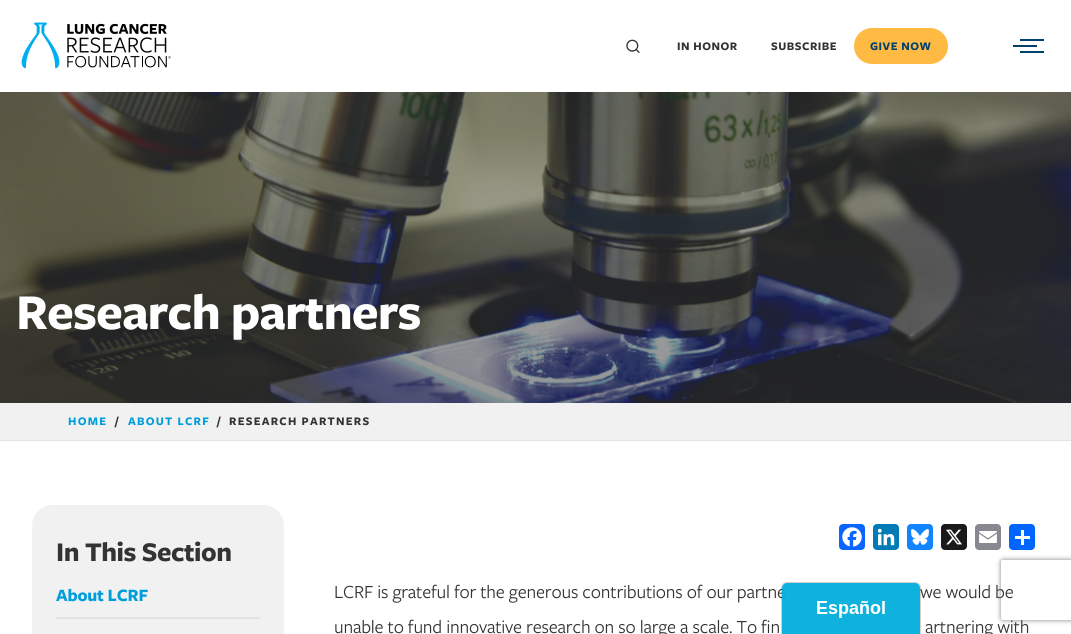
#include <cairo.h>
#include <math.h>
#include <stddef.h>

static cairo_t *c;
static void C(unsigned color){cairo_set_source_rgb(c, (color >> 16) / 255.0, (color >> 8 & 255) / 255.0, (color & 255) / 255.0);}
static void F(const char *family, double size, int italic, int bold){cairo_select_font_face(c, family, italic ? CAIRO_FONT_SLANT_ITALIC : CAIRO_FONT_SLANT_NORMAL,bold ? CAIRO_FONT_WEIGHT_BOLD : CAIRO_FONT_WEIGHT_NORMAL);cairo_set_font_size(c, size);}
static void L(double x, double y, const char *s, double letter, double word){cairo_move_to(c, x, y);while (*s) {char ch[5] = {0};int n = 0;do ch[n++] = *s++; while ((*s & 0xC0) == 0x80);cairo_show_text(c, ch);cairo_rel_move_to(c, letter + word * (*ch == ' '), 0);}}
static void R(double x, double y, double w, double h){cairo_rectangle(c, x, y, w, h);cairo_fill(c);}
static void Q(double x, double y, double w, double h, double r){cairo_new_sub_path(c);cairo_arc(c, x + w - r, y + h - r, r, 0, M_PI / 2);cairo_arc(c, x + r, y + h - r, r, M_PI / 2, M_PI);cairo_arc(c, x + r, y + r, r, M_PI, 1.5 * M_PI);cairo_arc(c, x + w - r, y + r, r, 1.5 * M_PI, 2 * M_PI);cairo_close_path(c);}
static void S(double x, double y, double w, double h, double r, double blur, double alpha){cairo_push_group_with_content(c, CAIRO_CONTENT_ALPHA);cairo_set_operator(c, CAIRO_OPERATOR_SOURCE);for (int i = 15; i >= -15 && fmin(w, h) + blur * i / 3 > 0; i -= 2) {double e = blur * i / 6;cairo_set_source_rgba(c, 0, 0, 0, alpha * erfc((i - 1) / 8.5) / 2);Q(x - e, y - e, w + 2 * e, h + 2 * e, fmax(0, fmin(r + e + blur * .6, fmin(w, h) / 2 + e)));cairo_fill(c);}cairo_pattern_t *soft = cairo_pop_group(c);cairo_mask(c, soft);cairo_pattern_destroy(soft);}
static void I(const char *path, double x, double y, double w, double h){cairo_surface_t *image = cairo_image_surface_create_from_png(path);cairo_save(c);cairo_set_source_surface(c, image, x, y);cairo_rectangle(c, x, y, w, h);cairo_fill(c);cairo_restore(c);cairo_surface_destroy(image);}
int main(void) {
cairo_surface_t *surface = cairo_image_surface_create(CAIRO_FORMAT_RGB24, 1071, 634);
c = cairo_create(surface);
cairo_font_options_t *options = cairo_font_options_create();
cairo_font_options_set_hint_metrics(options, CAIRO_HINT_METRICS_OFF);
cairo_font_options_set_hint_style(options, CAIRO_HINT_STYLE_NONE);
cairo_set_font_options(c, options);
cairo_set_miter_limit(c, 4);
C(0xffffff);
cairo_paint(c);
I("1.png",21,22,150,47);
I("2.png",626,39,14,14);
F("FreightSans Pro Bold",12,0,1);
C(0x333333);
L(677,50,"IN HONOR",.5,0);
L(771,50,"SUBSCRIBE",.5,0);
C(0xffba43);
Q(854,28,94,36,18);
cairo_fill(c);
C(0x00416e);
L(870,50,"GIVE NOW",.5,0);
R(1013,45,24,2);
R(1020,39,24,2);
R(1020,51,24,2);
I("3.png",0,92,1071,311);
F("FreightSans Pro Bold",52,0,1);
C(0xffffff);
L(16,329,"Research partners",-1,0);
C(0xf1f1f1);
R(0,403,1071,37);
C(0xe4e4e4);
R(0,440,1071,1);
F("FreightSans Pro Bold",12,0,1);
C(0x009ddb);
L(68,425,"HOME",1.25,0);
C(0x333333);
L(115,425,"/",1.25,0);
C(0x009ddb);
L(128,425,"ABOUT LCRF",1.25,0);
C(0x333333);
L(217,425,"/",1.25,0);
L(229,425,"RESEARCH PARTNERS",1.25,0);
C(0xf1f1f1);
Q(32,505,252,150,21);
cairo_fill(c);
F("FreightSans Pro Bold",28,0,1);
C(0x333333);
L(56,561,"In This Section",-.5,0);
C(0xe2e2e2);
R(56,617,204,2);
F("FreightSans Pro Bold",18,0,1);
C(0x009ddb);
L(56,601,"About LCRF",-.2,0);
C(0x0866ff);
Q(839,524,26,26,4);
cairo_fill(c);
I("4.png",842,527,20,20);
C(0x007bb5);
Q(873,524,26,26,4);
cairo_fill(c);
I("5.png",877,528,18,18);
C(0x1285fe);
Q(907,524,26,26,4);
cairo_fill(c);
I("6.png",911,529,18,16);
C(0x1a1a1a);
Q(941,524,26,26,4);
cairo_fill(c);
I("7.png",946,529,16,16);
C(0x888990);
Q(975,524,26,26,4);
cairo_fill(c);
I("8.png",979,531,18,12);
C(0x0166ff);
Q(1009,524,26,26,4);
cairo_fill(c);
C(0xffffff);
R(1021,530,3,15);
R(1015,536,15,3);
F("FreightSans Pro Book",19.2,0,0);
C(0x333333);
L(334,598,"LCRF is grateful for the generous contributions of our partne",-.2,0);
L(920,598,"we would be",-.2,0);
L(334,633,"unable to fund innovative research on so large a scale. To fin",-.2,0);
L(925,633,"artnering with",-.2,0);
cairo_save(c);
cairo_set_fill_rule(c,CAIRO_FILL_RULE_EVEN_ODD);
cairo_new_path(c);
cairo_move_to(c,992,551);
cairo_line_to(c,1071,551);
cairo_line_to(c,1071,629);
cairo_line_to(c,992,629);
cairo_close_path(c);
cairo_move_to(c,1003,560);
cairo_line_to(c,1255,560);
cairo_curve_to(c,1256,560,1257,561,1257,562);
cairo_line_to(c,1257,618);
cairo_curve_to(c,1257,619,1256,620,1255,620);
cairo_line_to(c,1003,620);
cairo_curve_to(c,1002,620,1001,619,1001,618);
cairo_line_to(c,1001,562);
cairo_curve_to(c,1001,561,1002,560,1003,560);
cairo_close_path(c);
cairo_clip(c);
C(0x808080);
S(1001,560,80,60,2,2.5,1);
cairo_restore(c);
I("9.png",781,582,140,52);
cairo_surface_write_to_png(surface, "o.png");
cairo_font_options_destroy(options);
cairo_destroy(c);
cairo_surface_destroy(surface);
return 0;
}
